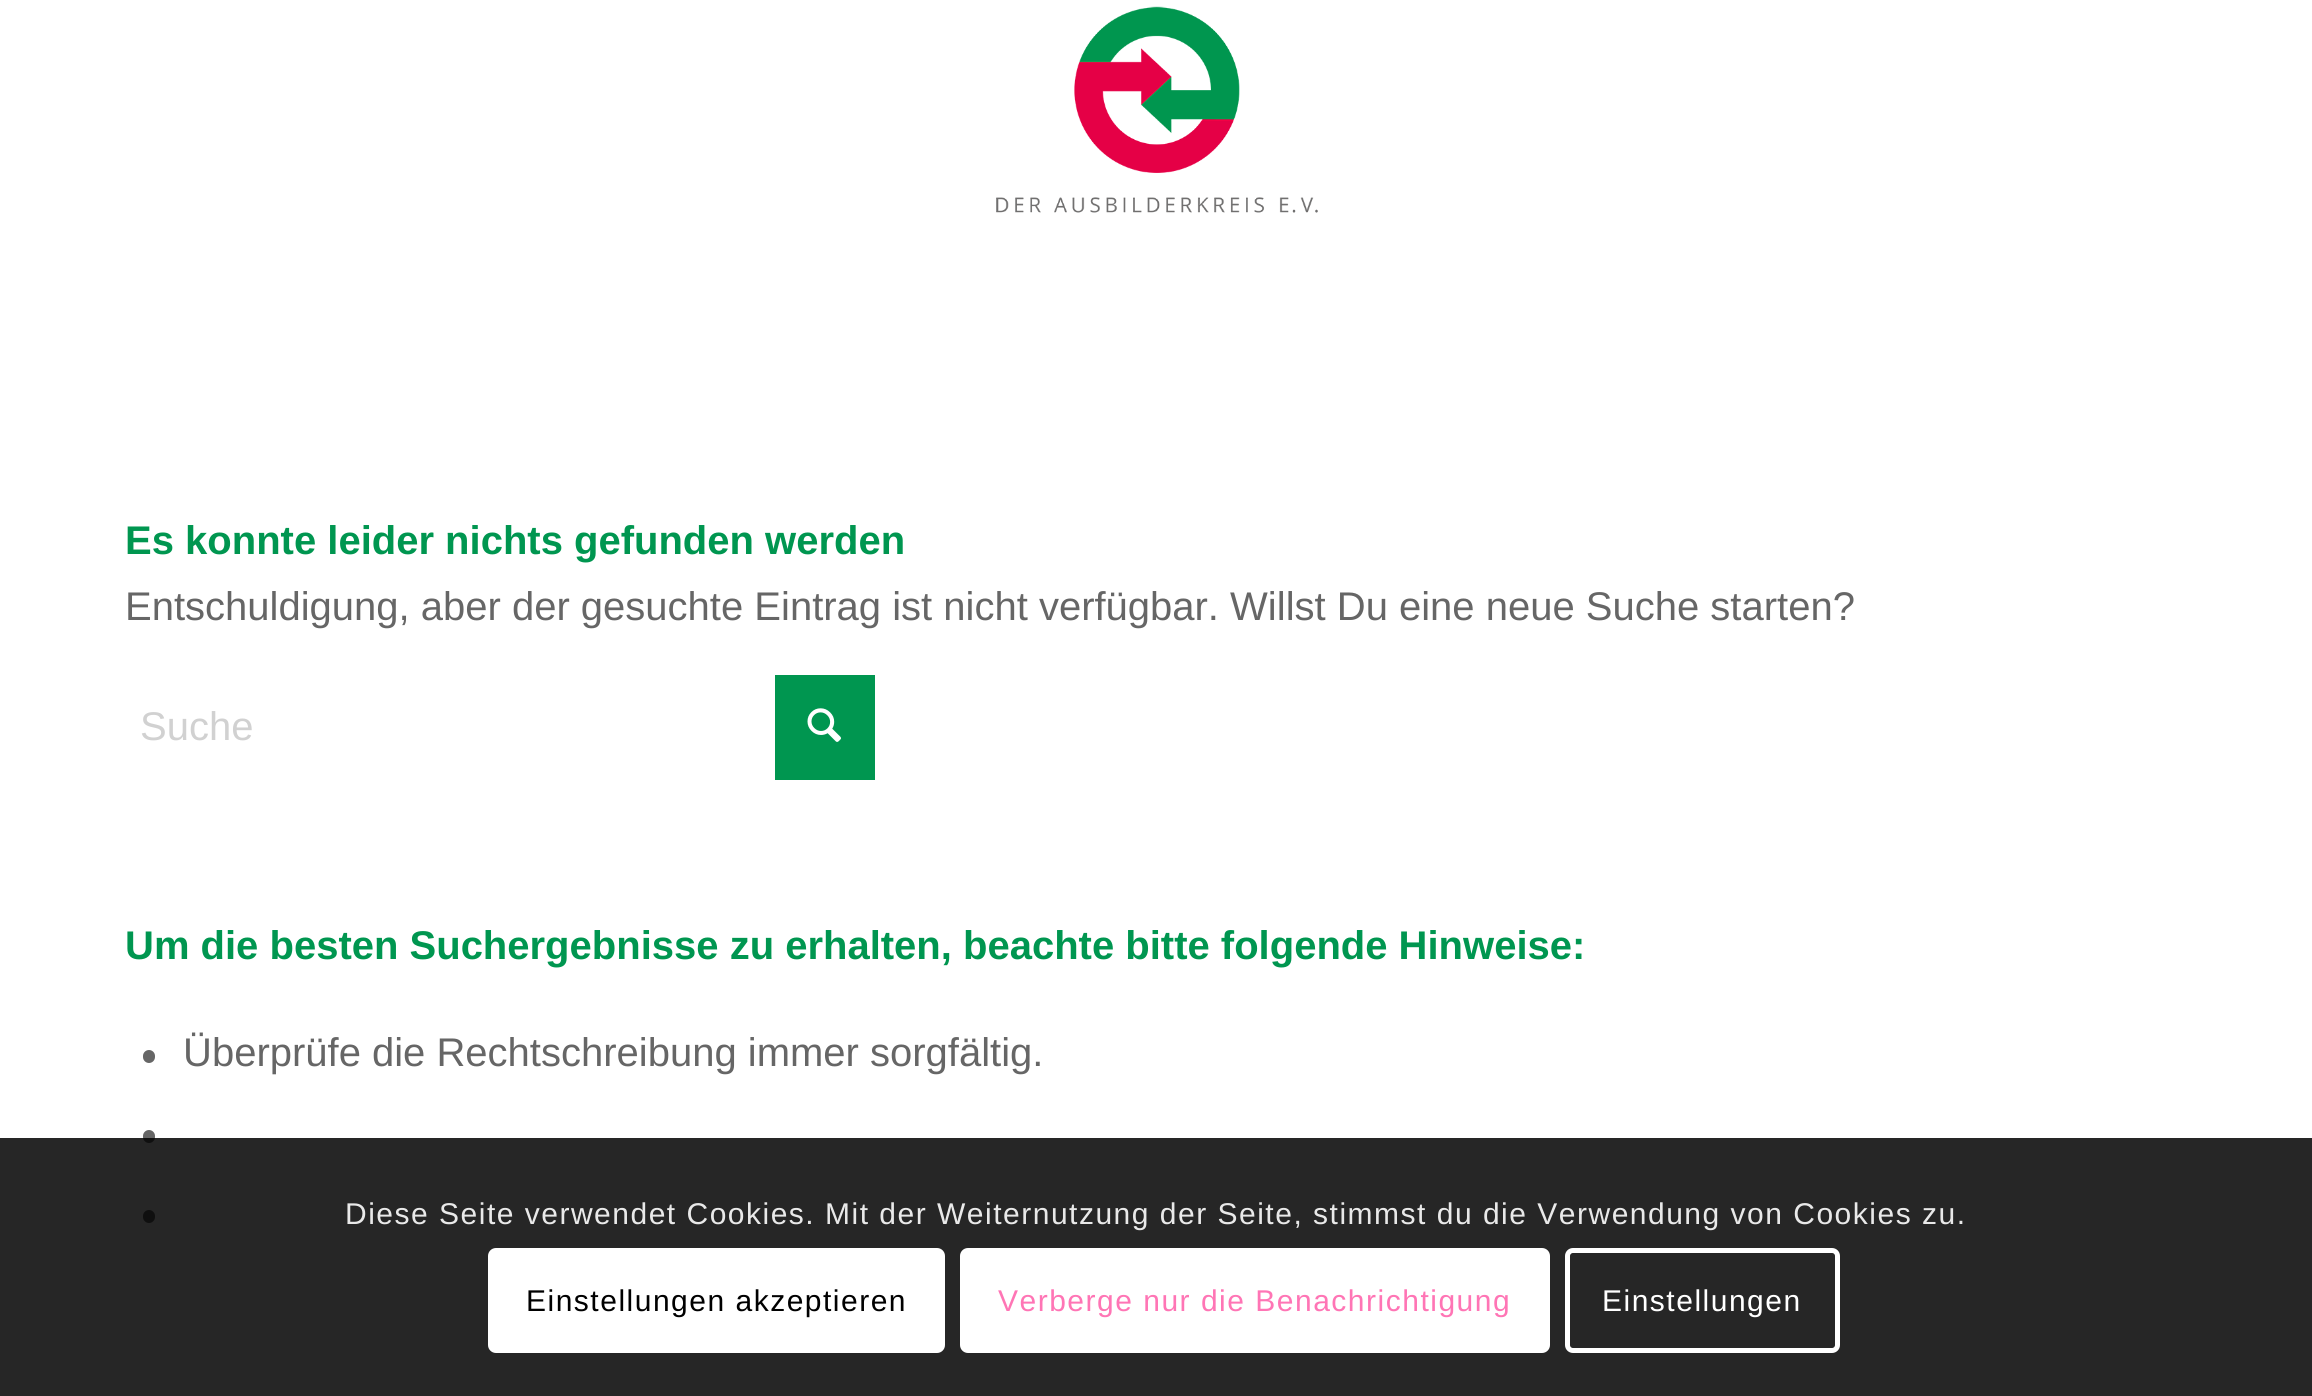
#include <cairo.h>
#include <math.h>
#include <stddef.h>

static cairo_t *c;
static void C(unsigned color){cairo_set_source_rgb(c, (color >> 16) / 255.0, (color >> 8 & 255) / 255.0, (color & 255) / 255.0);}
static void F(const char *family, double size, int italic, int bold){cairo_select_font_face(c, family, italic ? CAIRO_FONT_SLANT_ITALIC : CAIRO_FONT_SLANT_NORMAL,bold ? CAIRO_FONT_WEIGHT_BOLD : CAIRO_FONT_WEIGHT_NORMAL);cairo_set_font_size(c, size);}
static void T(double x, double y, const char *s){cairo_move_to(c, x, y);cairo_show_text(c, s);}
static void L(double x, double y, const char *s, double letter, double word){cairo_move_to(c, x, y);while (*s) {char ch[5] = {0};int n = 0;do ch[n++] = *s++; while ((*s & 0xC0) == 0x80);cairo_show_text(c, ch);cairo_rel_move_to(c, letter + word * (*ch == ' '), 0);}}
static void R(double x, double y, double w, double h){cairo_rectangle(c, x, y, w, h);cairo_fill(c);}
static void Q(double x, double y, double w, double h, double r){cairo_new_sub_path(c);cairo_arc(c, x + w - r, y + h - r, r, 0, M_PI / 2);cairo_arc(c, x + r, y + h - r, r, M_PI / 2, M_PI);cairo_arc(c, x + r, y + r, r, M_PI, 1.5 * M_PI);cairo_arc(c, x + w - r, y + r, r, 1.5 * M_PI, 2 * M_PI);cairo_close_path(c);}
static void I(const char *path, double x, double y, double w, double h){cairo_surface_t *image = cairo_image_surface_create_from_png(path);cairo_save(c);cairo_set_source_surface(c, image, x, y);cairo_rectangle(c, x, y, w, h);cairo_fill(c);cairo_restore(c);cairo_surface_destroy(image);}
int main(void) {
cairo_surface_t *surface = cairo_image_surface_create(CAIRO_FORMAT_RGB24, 2312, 1396);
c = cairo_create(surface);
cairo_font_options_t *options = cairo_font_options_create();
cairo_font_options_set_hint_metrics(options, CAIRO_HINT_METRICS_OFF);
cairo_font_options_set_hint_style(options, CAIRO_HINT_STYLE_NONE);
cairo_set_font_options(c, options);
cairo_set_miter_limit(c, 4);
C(0xffffff);
cairo_paint(c);
I("1.png",996,6,322,207);
F("Liberation Sans",40,0,1);
C(0x009650);
T(125,554,"Es konnte leider nichts gefunden werden");
F("Liberation Sans",40,0,0);
C(0x666666);
T(125,620,"Entschuldigung, aber der gesuchte Eintrag ist nicht verfügbar. Willst Du eine neue Suche starten?");
C(0xd1d1d1);
T(140,740,"Suche");
C(0x009650);
R(775,675,100,105);
I("2.png",807,708,34,34);
F("Liberation Sans",40,0,1);
T(125,959,"Um die besten Suchergebnisse zu erhalten, beachte bitte folgende Hinweise:");
C(0x666666);
Q(143,1050,12,13,6);
cairo_fill(c);
F("Liberation Sans",40,0,0);
T(183,1066,"Überprüfe die Rechtschreibung immer sorgfältig.");
Q(143,1130,12,13,6);
cairo_fill(c);
Q(143,1210,12,13,6);
cairo_fill(c);
cairo_set_source_rgba(c,0,0,0,0.85);
R(0,1138,2312,258);
F("Liberation Sans",30,0,0);
C(0xe9e9e9);
L(345,1224,"Diese Seite verwendet Cookies. Mit der Weiternutzung der Seite, stimmst du die Verwendung von Cookies zu.",1.5,0);
C(0xffffff);
Q(488,1248,457,105,8);
cairo_fill(c);
C(0x000000);
L(526,1311,"Einstellungen akzeptieren",1.5,0);
C(0xffffff);
Q(962.5,1250.5,585,100,5.5);
cairo_fill_preserve(c);
cairo_set_line_width(c,5);
cairo_stroke(c);
C(0xff75b5);
L(998,1311,"Verberge nur die Benachrichtigung",1.5,0);
Q(1567.5,1250.5,270,100,5.5);
C(0xffffff);
cairo_stroke(c);
L(1602,1311,"Einstellungen",1.5,0);
cairo_surface_write_to_png(surface, "o.png");
cairo_font_options_destroy(options);
cairo_destroy(c);
cairo_surface_destroy(surface);
return 0;
}
